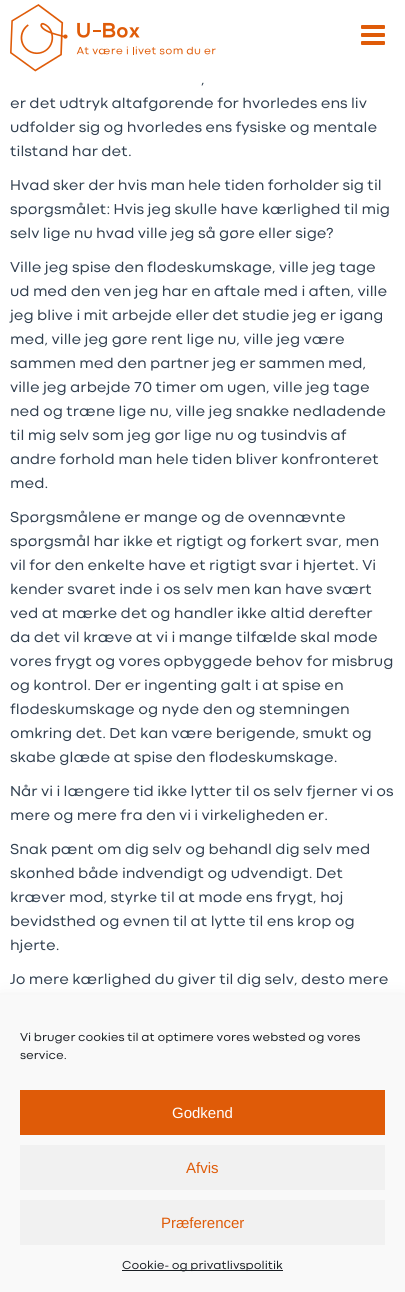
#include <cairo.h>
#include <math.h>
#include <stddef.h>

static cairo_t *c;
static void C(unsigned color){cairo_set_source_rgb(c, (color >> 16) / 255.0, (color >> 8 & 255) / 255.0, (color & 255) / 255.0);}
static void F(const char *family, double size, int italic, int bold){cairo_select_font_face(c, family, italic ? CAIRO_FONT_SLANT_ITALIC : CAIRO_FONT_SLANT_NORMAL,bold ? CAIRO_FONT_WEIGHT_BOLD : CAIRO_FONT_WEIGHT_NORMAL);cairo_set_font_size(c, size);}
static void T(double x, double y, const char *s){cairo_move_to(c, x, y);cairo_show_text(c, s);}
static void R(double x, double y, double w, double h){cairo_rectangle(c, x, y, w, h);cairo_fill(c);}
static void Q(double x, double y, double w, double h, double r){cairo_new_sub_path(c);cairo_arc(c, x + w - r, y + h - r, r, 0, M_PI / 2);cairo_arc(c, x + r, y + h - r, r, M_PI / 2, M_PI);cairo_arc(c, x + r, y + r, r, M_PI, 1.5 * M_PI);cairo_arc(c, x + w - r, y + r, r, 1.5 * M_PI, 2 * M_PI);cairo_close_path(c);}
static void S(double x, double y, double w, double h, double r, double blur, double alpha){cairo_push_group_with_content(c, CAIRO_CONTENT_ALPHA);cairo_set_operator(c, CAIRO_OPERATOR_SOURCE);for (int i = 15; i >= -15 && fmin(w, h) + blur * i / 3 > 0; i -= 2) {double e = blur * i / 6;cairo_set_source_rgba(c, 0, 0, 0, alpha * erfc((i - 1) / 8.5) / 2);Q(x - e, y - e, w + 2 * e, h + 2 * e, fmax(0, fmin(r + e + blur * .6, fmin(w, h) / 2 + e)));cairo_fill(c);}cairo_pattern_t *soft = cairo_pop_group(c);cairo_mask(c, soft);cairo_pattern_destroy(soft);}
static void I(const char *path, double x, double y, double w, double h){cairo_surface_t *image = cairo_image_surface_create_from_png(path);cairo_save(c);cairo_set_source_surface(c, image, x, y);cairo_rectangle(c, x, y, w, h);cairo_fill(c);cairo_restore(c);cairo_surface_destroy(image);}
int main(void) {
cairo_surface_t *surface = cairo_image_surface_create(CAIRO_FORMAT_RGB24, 405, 1292);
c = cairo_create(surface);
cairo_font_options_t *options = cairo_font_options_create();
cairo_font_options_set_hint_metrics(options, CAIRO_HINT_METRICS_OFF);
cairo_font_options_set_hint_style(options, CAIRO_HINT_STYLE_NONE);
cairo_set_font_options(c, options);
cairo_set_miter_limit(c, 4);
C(0xffffff);
cairo_paint(c);
I("1.png",10,4,206,68);
I("2.png",361,25,24,20);
F("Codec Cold",15,0,0);
C(0x314050);
T(201,84,",");
T(10,108,"er det udtryk altafgørende for hvorledes ens liv");
T(10,132,"udfolder sig og hvorledes ens fysiske og mentale");
T(10,156,"tilstand har det.");
T(10,190,"Hvad sker der hvis man hele tiden forholder sig til");
T(10,214,"spørgsmålet: Hvis jeg skulle have kærlighed til mig");
T(10,238,"selv lige nu hvad ville jeg så gøre eller sige?");
T(10,272,"Ville jeg spise den flødeskumskage, ville jeg tage");
T(10,296,"ud med den ven jeg har en aftale med i aften, ville");
T(10,320,"jeg blive i mit arbejde eller det studie jeg er igang");
T(10,344,"med, ville jeg gøre rent lige nu, ville jeg være");
T(10,368,"sammen med den partner jeg er sammen med,");
T(10,392,"ville jeg arbejde 70 timer om ugen, ville jeg tage");
T(10,416,"ned og træne lige nu, ville jeg snakke nedladende");
T(10,440,"til mig selv som jeg gør lige nu og tusindvis af");
T(10,464,"andre forhold man hele tiden bliver konfronteret");
T(10,488,"med.");
T(10,522,"Spørgsmålene er mange og de ovennævnte");
T(10,546,"spørgsmål har ikke et rigtigt og forkert svar, men");
T(10,570,"vil for den enkelte have et rigtigt svar i hjertet. Vi");
T(10,594,"kender svaret inde i os selv men kan have svært");
T(10,618,"ved at mærke det og handler ikke altid derefter");
T(10,642,"da det vil kræve at vi i mange tilfælde skal møde");
T(10,666,"vores frygt og vores opbyggede behov for misbrug");
T(10,690,"og kontrol. Der er ingenting galt i at spise en");
T(10,714,"flødeskumskage og nyde den og stemningen");
T(10,738,"omkring det. Det kan være berigende, smukt og");
T(10,762,"skabe glæde at spise den flødeskumskage.");
T(10,796,"Når vi i længere tid ikke lytter til os selv fjerner vi os");
T(10,820,"mere og mere fra den vi i virkeligheden er.");
T(10,854,"Snak pænt om dig selv og behandl dig selv med");
T(10,878,"skønhed både indvendigt og udvendigt. Det");
T(10,902,"kræver mod, styrke til at møde ens frygt, høj");
T(10,926,"bevidsthed og evnen til at lytte til ens krop og");
T(10,950,"hjerte.");
T(10,984,"Jo mere kærlighed du giver til dig selv, desto mere");
C(0x000000);
S(0,1004,405,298,0,10,.19);
C(0xf9f9f9);
R(0,995,405,297);
F("Codec Cold",12,0,0);
C(0x191e23);
T(20,1041,"Vi bruger cookies til at optimere vores websted og vores");
T(20,1059,"service.");
C(0xdf5b08);
R(20,1090,365,45);
F("Liberation Sans",15,0,0);
C(0xffffff);
T(172,1118,"Godkend");
C(0xf1f1f1);
R(20,1145,365,45);
C(0xdf5b08);
T(186,1173,"Afvis");
C(0xf1f1f1);
R(20,1200,365,45);
C(0xdf5b08);
T(161,1228,"Præferencer");
C(0x191e23);
R(122,1270,161,1);
F("Codec Cold",12,0,0);
T(122,1269,"Cookie- og privatlivspolitik");
cairo_surface_write_to_png(surface, "o.png");
cairo_font_options_destroy(options);
cairo_destroy(c);
cairo_surface_destroy(surface);
return 0;
}
